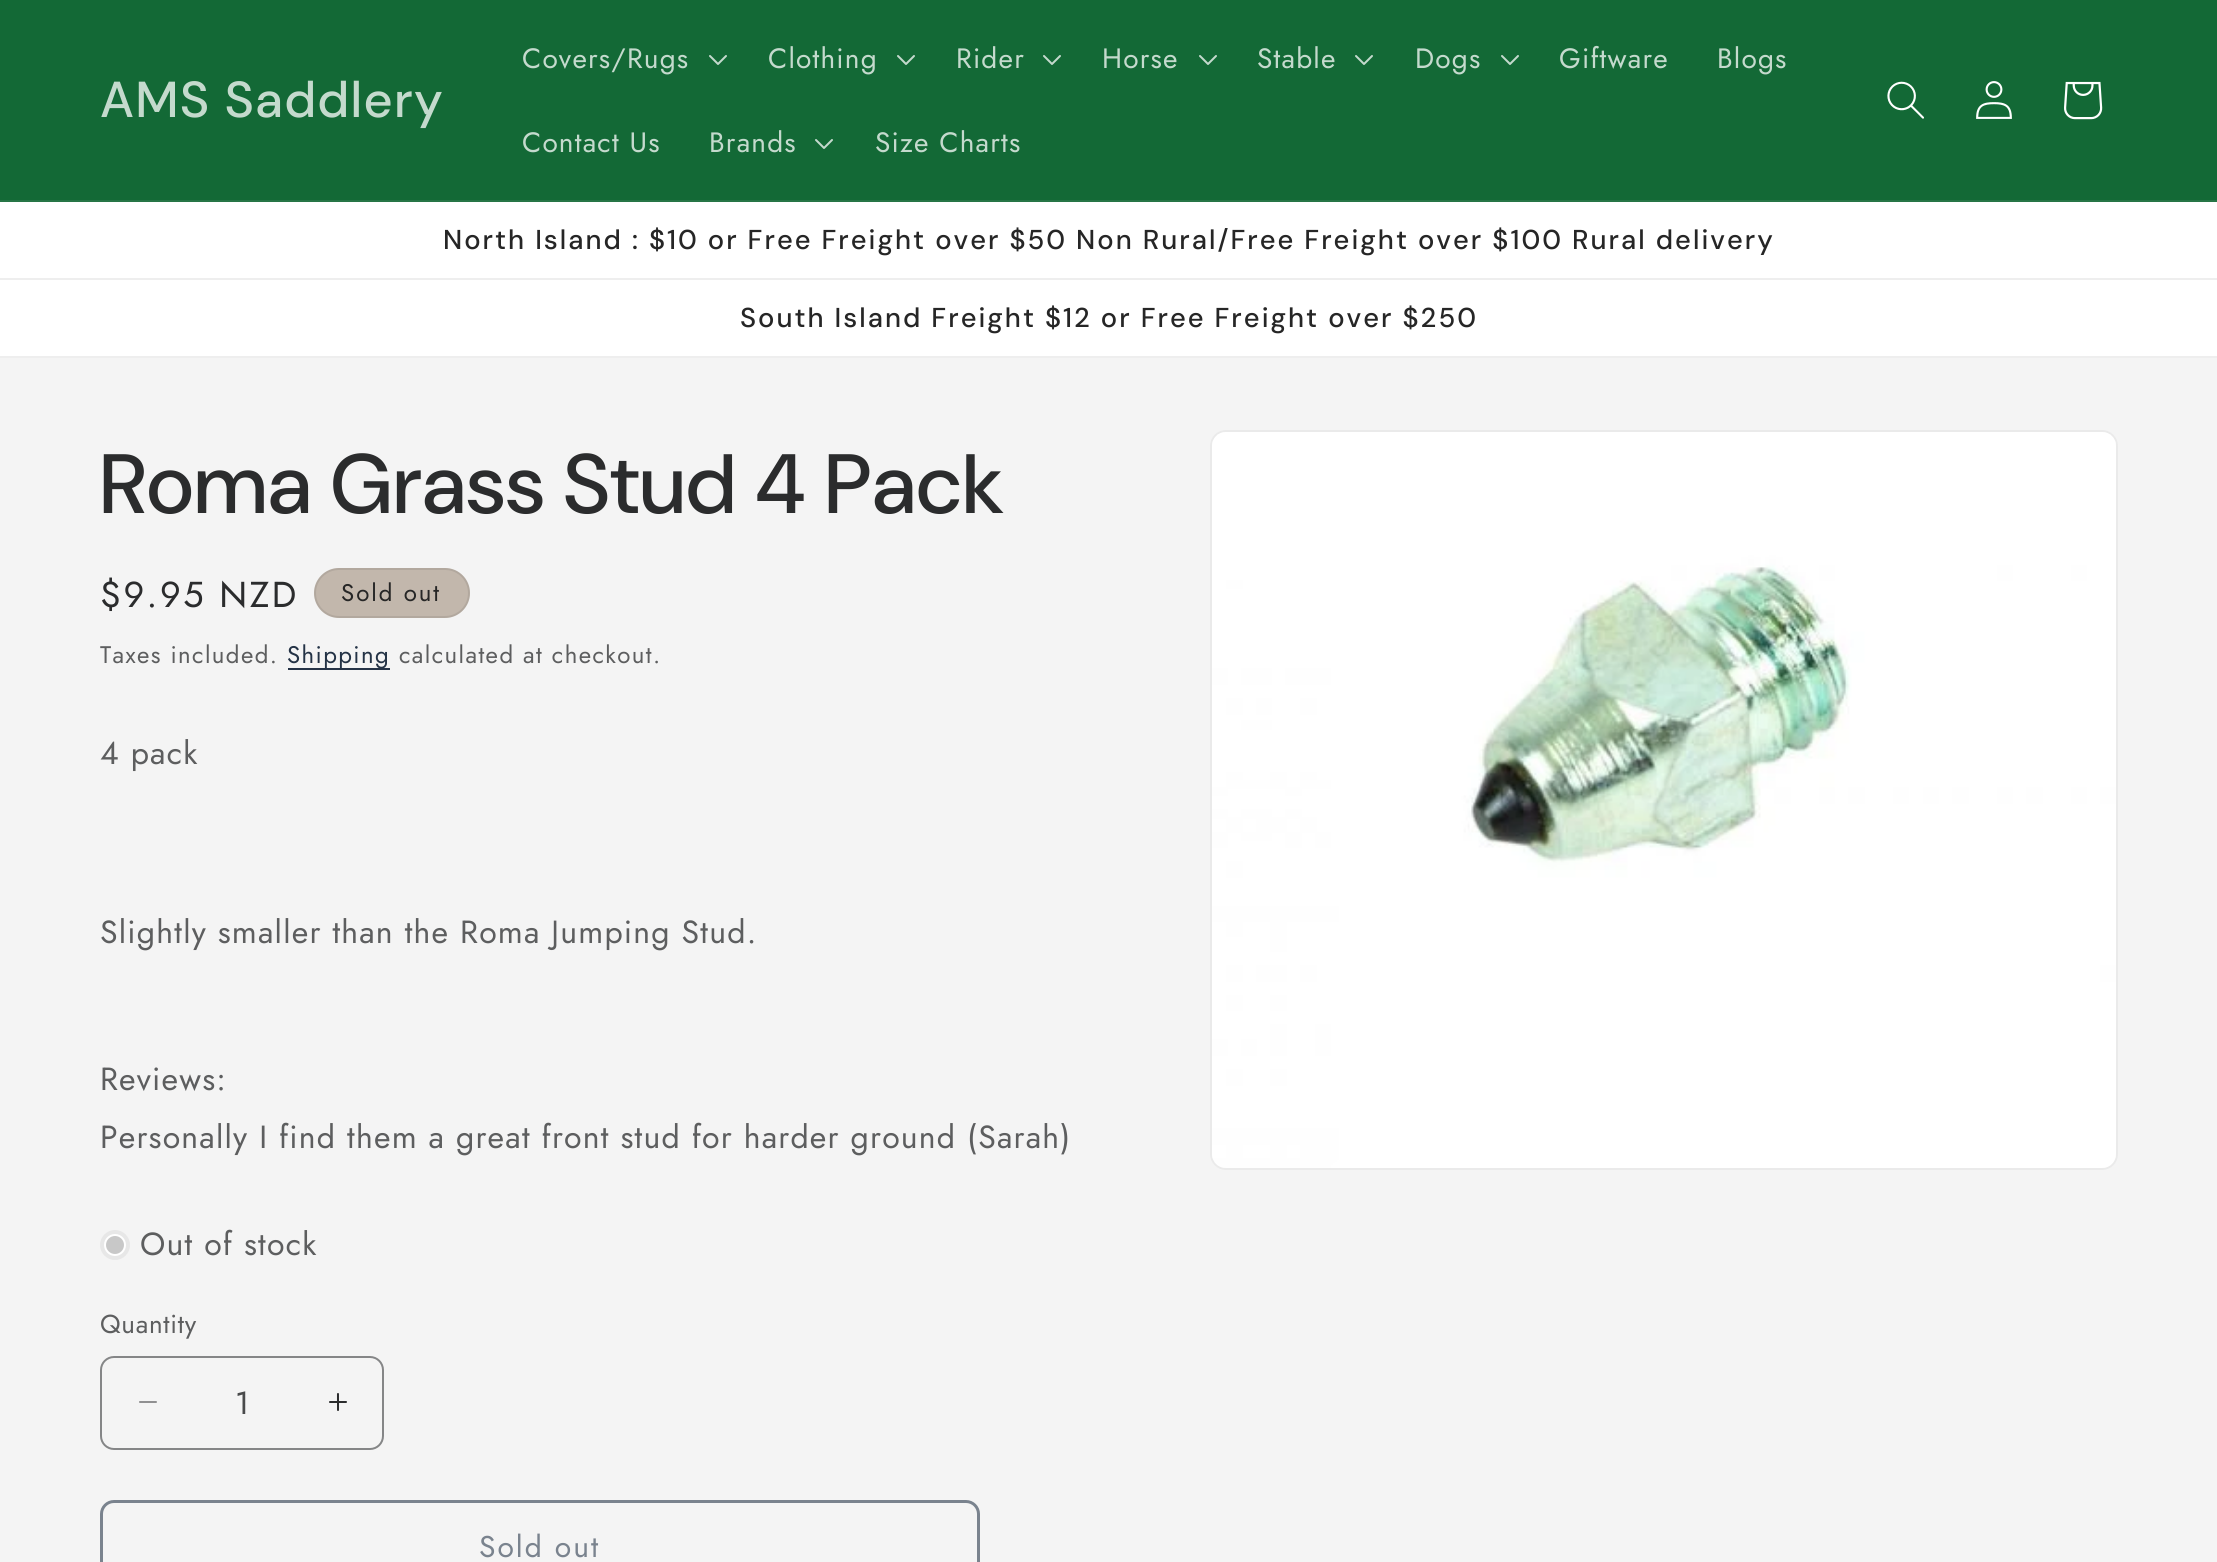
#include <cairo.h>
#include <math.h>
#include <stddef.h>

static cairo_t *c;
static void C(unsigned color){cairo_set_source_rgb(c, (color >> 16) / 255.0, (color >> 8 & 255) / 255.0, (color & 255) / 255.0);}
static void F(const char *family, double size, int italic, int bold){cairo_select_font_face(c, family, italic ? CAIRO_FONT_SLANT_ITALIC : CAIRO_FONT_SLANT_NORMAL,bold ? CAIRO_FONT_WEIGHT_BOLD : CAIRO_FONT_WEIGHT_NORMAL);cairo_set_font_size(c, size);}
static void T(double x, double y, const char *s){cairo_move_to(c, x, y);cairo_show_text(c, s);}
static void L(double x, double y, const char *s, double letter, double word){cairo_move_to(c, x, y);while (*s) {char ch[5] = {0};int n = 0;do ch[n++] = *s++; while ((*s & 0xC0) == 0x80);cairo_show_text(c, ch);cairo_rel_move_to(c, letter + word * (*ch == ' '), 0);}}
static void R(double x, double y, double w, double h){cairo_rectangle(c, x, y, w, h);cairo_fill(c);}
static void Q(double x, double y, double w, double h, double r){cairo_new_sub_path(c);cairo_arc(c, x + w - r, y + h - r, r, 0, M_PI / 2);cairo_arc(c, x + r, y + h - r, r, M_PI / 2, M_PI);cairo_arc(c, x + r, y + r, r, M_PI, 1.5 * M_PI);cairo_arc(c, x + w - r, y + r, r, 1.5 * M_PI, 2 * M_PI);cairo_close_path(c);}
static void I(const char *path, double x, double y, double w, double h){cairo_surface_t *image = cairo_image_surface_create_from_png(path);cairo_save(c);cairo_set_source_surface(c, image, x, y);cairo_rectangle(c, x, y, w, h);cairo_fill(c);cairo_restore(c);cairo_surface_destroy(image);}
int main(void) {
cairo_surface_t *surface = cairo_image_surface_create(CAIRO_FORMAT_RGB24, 2217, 1562);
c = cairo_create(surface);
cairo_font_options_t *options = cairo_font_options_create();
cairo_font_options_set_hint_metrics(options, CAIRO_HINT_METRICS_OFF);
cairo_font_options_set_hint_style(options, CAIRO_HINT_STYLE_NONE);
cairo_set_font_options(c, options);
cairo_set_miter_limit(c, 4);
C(0xf4f4f4);
cairo_paint(c);
C(0x136936);
R(0,0,2217,200);
C(0x267546);
R(0,200,2217,2);
F("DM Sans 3 Medium",50.5,0,0);
C(0xc4dacd);
L(100,117,"AMS Saddlery",1.25,0);
F("Jost",28,0,0);
L(522,68,"Covers/Rugs",1.2,0);
I("1.png",709,55,18,10);
L(768,68,"Clothing",1.2,0);
I("1.png",897,55,18,10);
L(956,68,"Rider",1.2,0);
I("1.png",1043,55,18,10);
L(1102,68,"Horse",1.2,0);
I("1.png",1199,55,18,10);
L(1257,68,"Stable",1.2,0);
I("1.png",1355,55,18,10);
L(1415,68,"Dogs",1.2,0);
I("1.png",1501,55,18,10);
L(1559,68,"Giftware",1.2,0);
L(1717,68,"Blogs",1.2,0);
L(522,152,"Contact Us",1.2,0);
L(709,152,"Brands",1.2,0);
I("1.png",815,139,18,10);
L(875,152,"Size Charts",1.2,0);
I("2.png",1887,81,37,38);
I("3.png",1976,81,36,38);
I("4.png",2064,81,39,39);
C(0xffffff);
R(0,202,2217,76);
C(0xeeeeee);
R(0,278,2217,2);
F("DM Sans Medium",27.3,0,0);
C(0x262626);
L(443,249,"North Island : $10 or Free Freight over $50 Non Rural/Free Freight over $100 Rural delivery",2,0);
C(0xffffff);
R(0,280,2217,76);
C(0xeeeeee);
R(0,356,2217,2);
C(0x262626);
L(740,327,"South Island Freight $12 or Free Freight over $250",2,0);
F("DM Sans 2 Medium",84,0,0);
C(0x2b2c2d);
L(100,513,"Roma Grass Stud 4 Pack",1.25,0);
F("Jost",36,0,0);
L(100,607,"$9.95 NZD",2.5,0);
C(0xc2b7ac);
Q(314,568,156,50,25);
cairo_fill(c);
Q(315,569,154,48,24);
cairo_set_source_rgba(c,0.149,0.149,0.149,0.1);
cairo_stroke(c);
F("Jost",24,0,0);
C(0x262626);
L(341,601,"Sold out",2,0);
C(0x5d5e5f);
L(100,663,"Taxes included.",1.4,0);
C(0x253347);
R(288,668,102,2);
C(0x243346);
L(287,663,"Shipping",1.4,0);
C(0x5d5e5f);
L(399,663,"calculated at checkout.",1.4,0);
F("Jost",32,0,0);
L(100,764,"4 pack",1.2,0);
L(100,943,"Slightly smaller than the Roma Jumping Stud.",1.2,0);
L(100,1090,"Reviews:",1.2,0);
L(100,1148,"Personally I find them a great front stud for harder ground (Sarah)",1.2,0);
C(0xe7e7e7);
cairo_new_path(c);
cairo_arc(c,115,1245,15,0,2 * M_PI);
cairo_fill(c);
C(0xc8c8c8);
cairo_arc(c,115,1245,10,0,2 * M_PI);
cairo_fill_preserve(c);
C(0xffffff);
cairo_stroke(c);
C(0x5d5e5f);
L(140,1255,"Out of stock",1.2,0);
F("Jost",26,0,0);
L(100,1333,"Quantity",.75,0);
I("5.png",139,1401,18,2);
I("6.png",329,1393,18,18);
Q(101,1357,282,92,13);
C(0x858687);
cairo_stroke(c);
F("Jost",32,0,0);
C(0x494a4b);
T(235,1414,"1");
Q(101.5,1501.5,877,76,12.5);
C(0x7a838e);
cairo_set_line_width(c,3);
cairo_stroke(c);
F("Jost",30,0,0);
L(479,1557,"Sold out",2,0);
Q(1211,431,906,738,15);
C(0xeaeaea);
cairo_set_line_width(c,2);
cairo_stroke(c);
I("7.png",1212,432,904,736);
cairo_surface_write_to_png(surface, "o.png");
cairo_font_options_destroy(options);
cairo_destroy(c);
cairo_surface_destroy(surface);
return 0;
}
